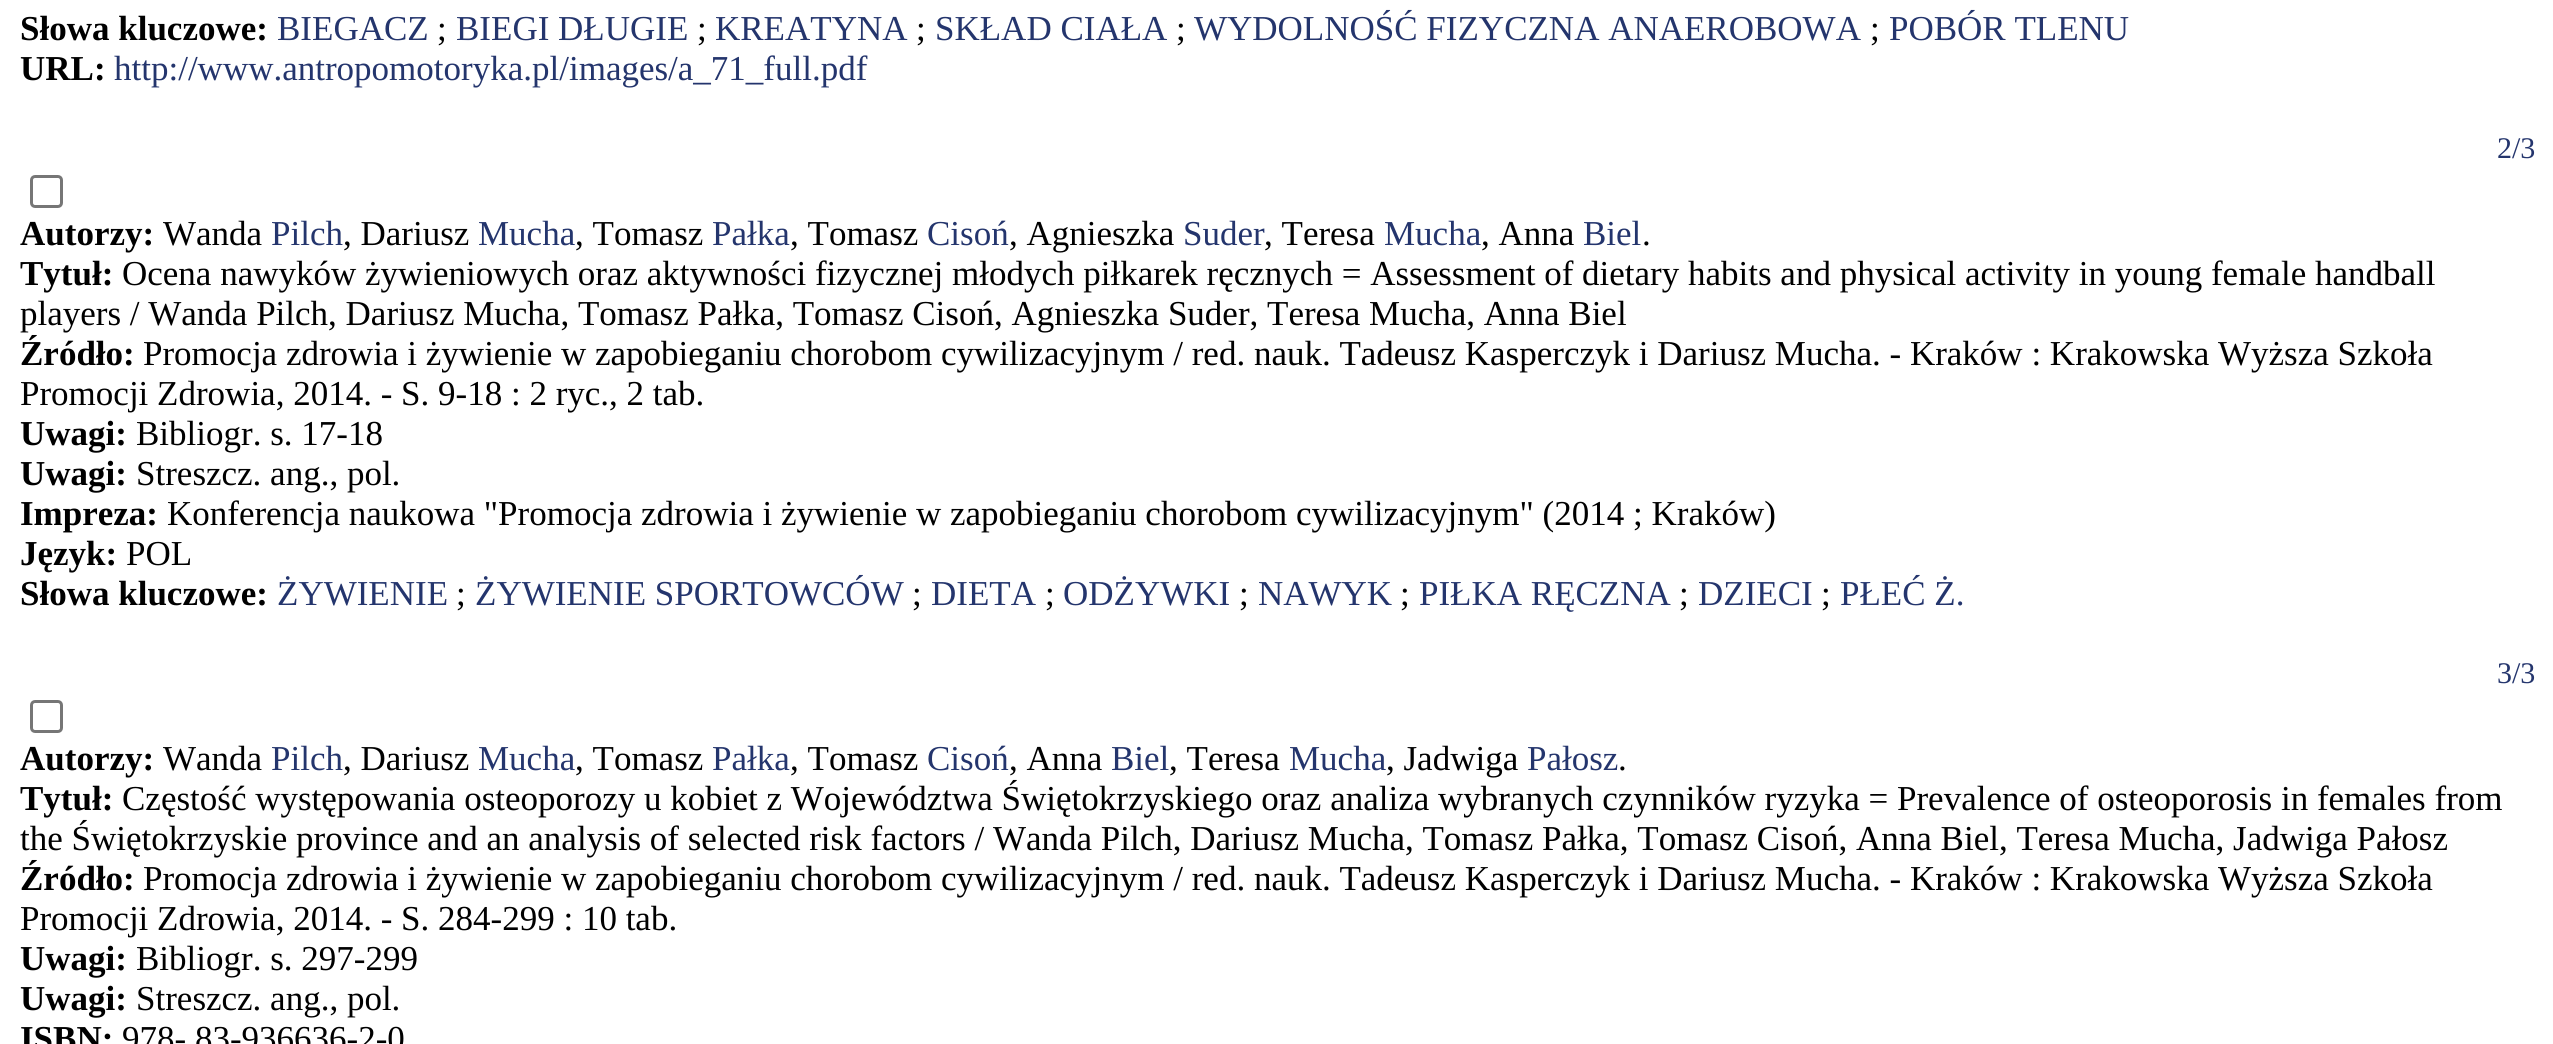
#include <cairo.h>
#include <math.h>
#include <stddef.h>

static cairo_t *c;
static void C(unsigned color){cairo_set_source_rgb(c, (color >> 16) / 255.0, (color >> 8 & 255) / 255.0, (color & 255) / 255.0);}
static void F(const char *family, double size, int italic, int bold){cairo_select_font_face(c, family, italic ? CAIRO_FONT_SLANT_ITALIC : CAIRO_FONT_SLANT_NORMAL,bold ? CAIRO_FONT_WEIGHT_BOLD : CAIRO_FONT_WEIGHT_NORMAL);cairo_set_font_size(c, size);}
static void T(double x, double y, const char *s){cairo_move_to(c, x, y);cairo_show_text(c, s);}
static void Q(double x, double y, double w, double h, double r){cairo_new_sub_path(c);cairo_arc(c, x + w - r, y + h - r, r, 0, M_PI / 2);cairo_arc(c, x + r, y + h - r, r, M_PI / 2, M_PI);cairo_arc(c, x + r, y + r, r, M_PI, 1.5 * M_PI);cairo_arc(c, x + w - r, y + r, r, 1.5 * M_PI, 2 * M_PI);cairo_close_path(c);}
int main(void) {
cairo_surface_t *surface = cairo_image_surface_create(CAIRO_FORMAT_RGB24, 2553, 1044);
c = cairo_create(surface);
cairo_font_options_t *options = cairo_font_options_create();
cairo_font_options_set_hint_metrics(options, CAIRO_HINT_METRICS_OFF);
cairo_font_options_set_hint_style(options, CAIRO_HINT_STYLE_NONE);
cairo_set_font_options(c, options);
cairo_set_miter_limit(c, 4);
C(0xffffff);
cairo_paint(c);
F("Liberation Serif",35,0,1);
C(0x000000);
T(20,40,"Słowa kluczowe:");
F("Liberation Serif",35,0,0);
C(0x24356d);
T(277,40,"BIEGACZ");
C(0x000000);
T(437,40,";");
C(0x24356d);
T(456,40,"BIEGI DŁUGIE");
C(0x000000);
T(697,40,";");
C(0x24356d);
T(715,40,"KREATYNA");
C(0x000000);
T(916,40,";");
C(0x24356d);
T(935,40,"SKŁAD CIAŁA");
C(0x000000);
T(1176,40,";");
C(0x24356d);
T(1194,40,"WYDOLNOŚĆ FIZYCZNA ANAEROBOWA");
C(0x000000);
T(1870,40,";");
C(0x24356d);
T(1889,40,"POBÓR TLENU");
F("Liberation Serif",35,0,1);
C(0x000000);
T(20,80,"URL:");
F("Liberation Serif",35,0,0);
C(0x24356d);
T(114,80,"http://www.antropomotoryka.pl/images/a_71_full.pdf");
F("Liberation Serif",30,0,0);
T(2497,158,"2/3");
Q(31.5,176.5,30,30,3.5);
C(0x767676);
cairo_set_line_width(c,3);
cairo_stroke(c);
F("Liberation Serif",35,0,1);
C(0x000000);
T(20,245,"Autorzy:");
F("Liberation Serif",35,0,0);
T(163,245,"Wanda");
C(0x24356d);
T(271,245,"Pilch");
C(0x000000);
T(343,245,", Dariusz");
C(0x24356d);
T(478,245,"Mucha");
C(0x000000);
T(575,245,", Tomasz");
C(0x24356d);
T(712,245,"Pałka");
C(0x000000);
T(790,245,", Tomasz");
C(0x24356d);
T(927,245,"Cisoń");
C(0x000000);
T(1009,245,", Agnieszka");
C(0x24356d);
T(1183,245,"Suder");
C(0x000000);
T(1264,245,", Teresa");
C(0x24356d);
T(1384,245,"Mucha");
C(0x000000);
T(1481,245,", Anna");
C(0x24356d);
T(1583,245,"Biel");
C(0x000000);
T(1642,245,".");
F("Liberation Serif",35,0,1);
T(20,285,"Tytuł:");
F("Liberation Serif",35,0,0);
T(122,285,"Ocena nawyków żywieniowych oraz aktywności fizycznej młodych piłkarek ręcznych = Assessment of dietary habits and physical activity in young female handball");
T(20,325,"players / Wanda Pilch, Dariusz Mucha, Tomasz Pałka, Tomasz Cisoń, Agnieszka Suder, Teresa Mucha, Anna Biel");
F("Liberation Serif",35,0,1);
T(20,365,"Źródło:");
F("Liberation Serif",35,0,0);
T(143,365,"Promocja zdrowia i żywienie w zapobieganiu chorobom cywilizacyjnym / red. nauk. Tadeusz Kasperczyk i Dariusz Mucha. - Kraków : Krakowska Wyższa Szkoła");
T(20,405,"Promocji Zdrowia, 2014. - S. 9-18 : 2 ryc., 2 tab.");
F("Liberation Serif",35,0,1);
T(20,445,"Uwagi:");
F("Liberation Serif",35,0,0);
T(136,445,"Bibliogr. s. 17-18");
F("Liberation Serif",35,0,1);
T(20,485,"Uwagi:");
F("Liberation Serif",35,0,0);
T(136,485,"Streszcz. ang., pol.");
F("Liberation Serif",35,0,1);
T(20,525,"Impreza:");
F("Liberation Serif",35,0,0);
T(167,525,"Konferencja naukowa \"Promocja zdrowia i żywienie w zapobieganiu chorobom cywilizacyjnym\" (2014 ; Kraków)");
F("Liberation Serif",35,0,1);
T(20,565,"Język:");
F("Liberation Serif",35,0,0);
T(126,565,"POL");
F("Liberation Serif",35,0,1);
T(20,605,"Słowa kluczowe:");
F("Liberation Serif",35,0,0);
C(0x24356d);
T(277,605,"ŻYWIENIE");
C(0x000000);
T(456,605,";");
C(0x24356d);
T(475,605,"ŻYWIENIE SPORTOWCÓW");
C(0x000000);
T(912,605,";");
C(0x24356d);
T(931,605,"DIETA");
C(0x000000);
T(1045,605,";");
C(0x24356d);
T(1063,605,"ODŻYWKI");
C(0x000000);
T(1239,605,";");
C(0x24356d);
T(1258,605,"NAWYK");
C(0x000000);
T(1400,605,";");
C(0x24356d);
T(1419,605,"PIŁKA RĘCZNA");
C(0x000000);
T(1679,605,";");
C(0x24356d);
T(1698,605,"DZIECI");
C(0x000000);
T(1821,605,";");
C(0x24356d);
T(1840,605,"PŁEĆ Ż.");
F("Liberation Serif",30,0,0);
T(2497,683,"3/3");
Q(31.5,701.5,30,30,3.5);
C(0x767676);
cairo_stroke(c);
F("Liberation Serif",35,0,1);
C(0x000000);
T(20,770,"Autorzy:");
F("Liberation Serif",35,0,0);
T(163,770,"Wanda");
C(0x24356d);
T(271,770,"Pilch");
C(0x000000);
T(343,770,", Dariusz");
C(0x24356d);
T(478,770,"Mucha");
C(0x000000);
T(575,770,", Tomasz");
C(0x24356d);
T(712,770,"Pałka");
C(0x000000);
T(790,770,", Tomasz");
C(0x24356d);
T(927,770,"Cisoń");
C(0x000000);
T(1009,770,", Anna");
C(0x24356d);
T(1111,770,"Biel");
C(0x000000);
T(1169,770,", Teresa");
C(0x24356d);
T(1289,770,"Mucha");
C(0x000000);
T(1386,770,", Jadwiga");
C(0x24356d);
T(1527,770,"Pałosz");
C(0x000000);
T(1618,770,".");
F("Liberation Serif",35,0,1);
T(20,810,"Tytuł:");
F("Liberation Serif",35,0,0);
T(122,810,"Częstość występowania osteoporozy u kobiet z Województwa Świętokrzyskiego oraz analiza wybranych czynników ryzyka = Prevalence of osteoporosis in females from");
T(20,850,"the Świętokrzyskie province and an analysis of selected risk factors / Wanda Pilch, Dariusz Mucha, Tomasz Pałka, Tomasz Cisoń, Anna Biel, Teresa Mucha, Jadwiga Pałosz");
F("Liberation Serif",35,0,1);
T(20,890,"Źródło:");
F("Liberation Serif",35,0,0);
T(143,890,"Promocja zdrowia i żywienie w zapobieganiu chorobom cywilizacyjnym / red. nauk. Tadeusz Kasperczyk i Dariusz Mucha. - Kraków : Krakowska Wyższa Szkoła");
T(20,930,"Promocji Zdrowia, 2014. - S. 284-299 : 10 tab.");
F("Liberation Serif",35,0,1);
T(20,970,"Uwagi:");
F("Liberation Serif",35,0,0);
T(136,970,"Bibliogr. s. 297-299");
F("Liberation Serif",35,0,1);
T(20,1010,"Uwagi:");
F("Liberation Serif",35,0,0);
T(136,1010,"Streszcz. ang., pol.");
F("Liberation Serif",35,0,1);
T(20,1050,"ISBN:");
F("Liberation Serif",35,0,0);
T(122,1050,"978- 83-936636-2-0");
cairo_surface_write_to_png(surface, "o.png");
cairo_font_options_destroy(options);
cairo_destroy(c);
cairo_surface_destroy(surface);
return 0;
}
